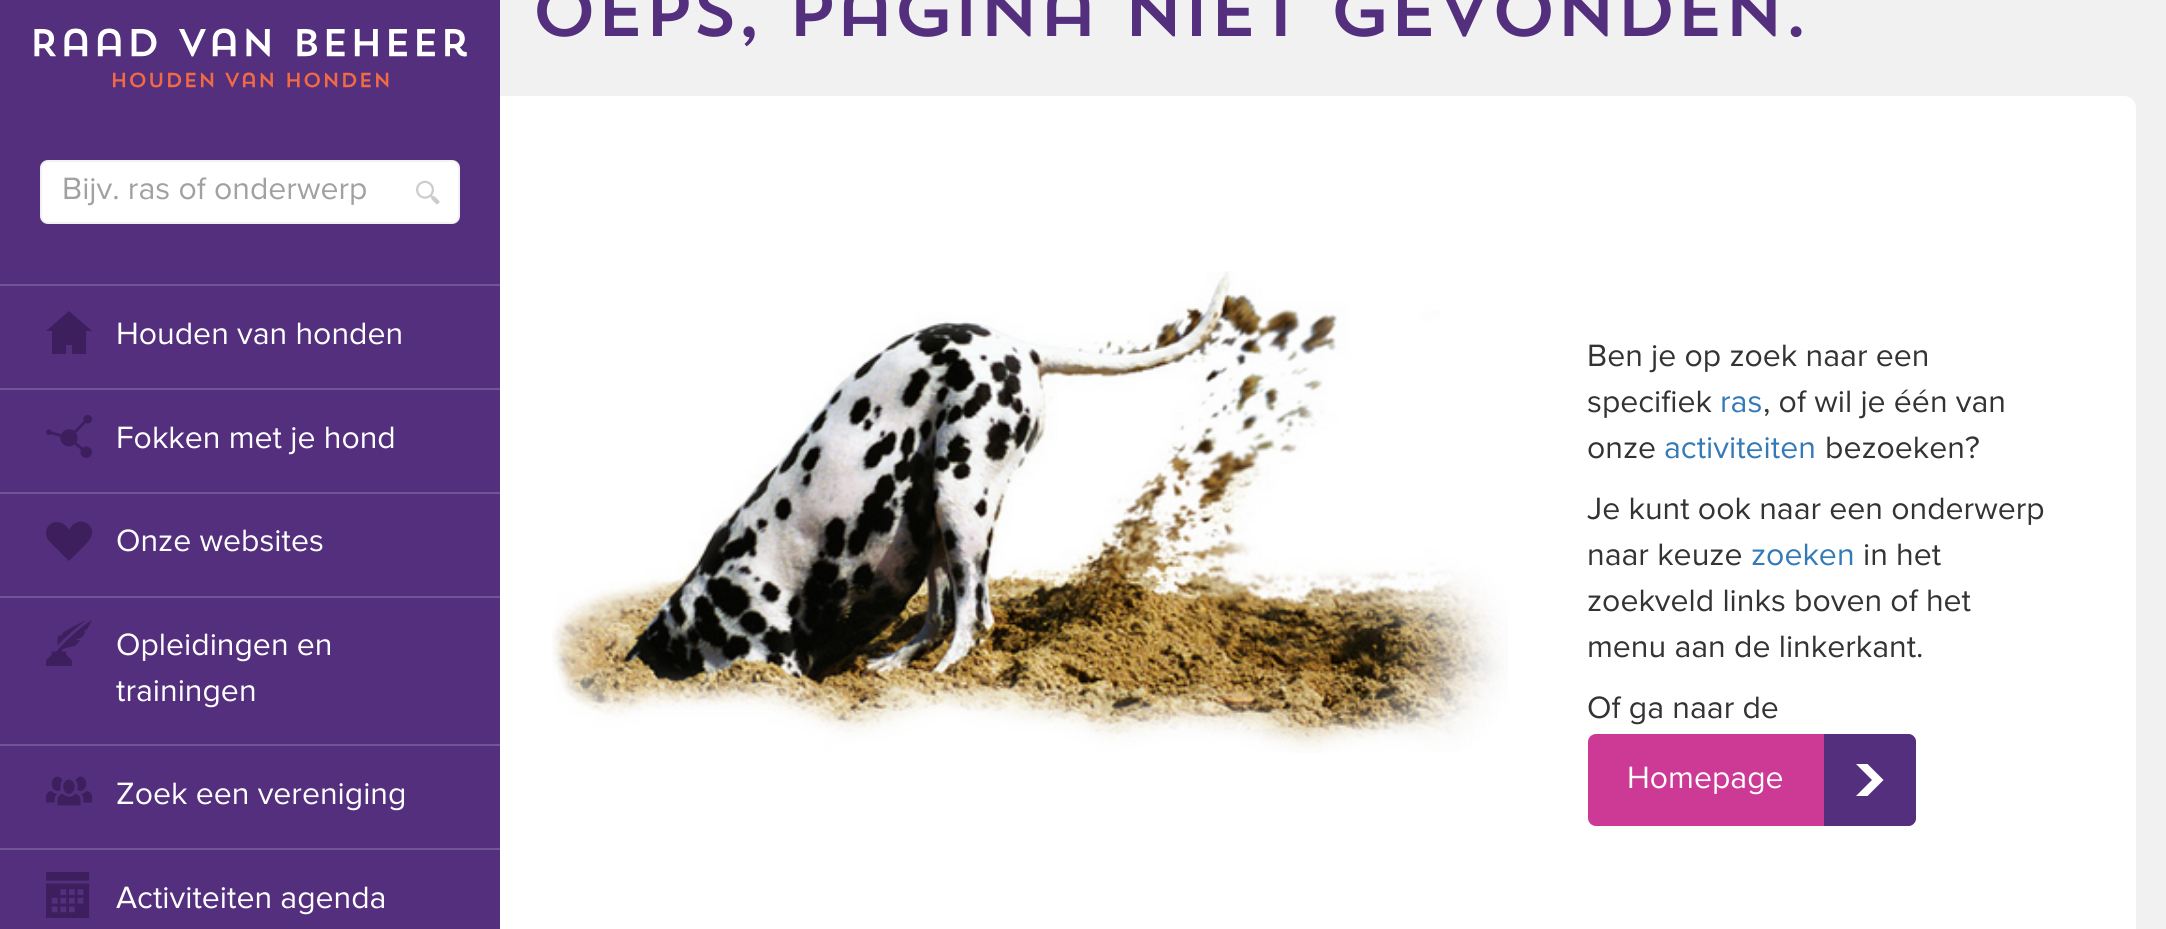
#include <cairo.h>
#include <math.h>
#include <stddef.h>

static cairo_t *c;
static void C(unsigned color){cairo_set_source_rgb(c, (color >> 16) / 255.0, (color >> 8 & 255) / 255.0, (color & 255) / 255.0);}
static void F(const char *family, double size, int italic, int bold){cairo_select_font_face(c, family, italic ? CAIRO_FONT_SLANT_ITALIC : CAIRO_FONT_SLANT_NORMAL,bold ? CAIRO_FONT_WEIGHT_BOLD : CAIRO_FONT_WEIGHT_NORMAL);cairo_set_font_size(c, size);}
static void T(double x, double y, const char *s){cairo_move_to(c, x, y);cairo_show_text(c, s);}
static void L(double x, double y, const char *s, double letter, double word){cairo_move_to(c, x, y);while (*s) {char ch[5] = {0};int n = 0;do ch[n++] = *s++; while ((*s & 0xC0) == 0x80);cairo_show_text(c, ch);cairo_rel_move_to(c, letter + word * (*ch == ' '), 0);}}
static void R(double x, double y, double w, double h){cairo_rectangle(c, x, y, w, h);cairo_fill(c);}
static void Q(double x, double y, double w, double h, double r){cairo_new_sub_path(c);cairo_arc(c, x + w - r, y + h - r, r, 0, M_PI / 2);cairo_arc(c, x + r, y + h - r, r, M_PI / 2, M_PI);cairo_arc(c, x + r, y + r, r, M_PI, 1.5 * M_PI);cairo_arc(c, x + w - r, y + r, r, 1.5 * M_PI, 2 * M_PI);cairo_close_path(c);}
static void I(const char *path, double x, double y, double w, double h){cairo_surface_t *image = cairo_image_surface_create_from_png(path);cairo_save(c);cairo_set_source_surface(c, image, x, y);cairo_rectangle(c, x, y, w, h);cairo_fill(c);cairo_restore(c);cairo_surface_destroy(image);}
int main(void) {
cairo_surface_t *surface = cairo_image_surface_create(CAIRO_FORMAT_RGB24, 2166, 929);
c = cairo_create(surface);
cairo_font_options_t *options = cairo_font_options_create();
cairo_font_options_set_hint_metrics(options, CAIRO_HINT_METRICS_OFF);
cairo_font_options_set_hint_style(options, CAIRO_HINT_STYLE_NONE);
cairo_set_font_options(c, options);
cairo_set_miter_limit(c, 4);
C(0xf1f1f1);
cairo_paint(c);
C(0xffffff);
cairo_new_path(c);
cairo_move_to(c,0,96);
cairo_line_to(c,2124,96);
cairo_curve_to(c,2130.5,96,2136,101.5,2136,108);
cairo_line_to(c,2136,929);
cairo_curve_to(c,2136,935.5,2130.5,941,2124,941);
cairo_line_to(c,0,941);
cairo_close_path(c);
cairo_fill(c);
C(0x542f7d);
R(0,0,500,929);
I("1.png",34,28,433,60);
C(0x725593);
R(0,284,500,2);
C(0xffffff);
Q(41,161,418,62,7);
cairo_fill_preserve(c);
C(0xf2f2f2);
cairo_stroke(c);
F("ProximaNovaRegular",32,0,0);
C(0xa1a1a1);
T(62,199,"Bijv. ras of onderwerp");
I("2.png",416,180,24,25);
C(0x725593);
R(0,388,500,2);
C(0x3d1f5d);
cairo_new_path(c);
cairo_move_to(c,69,311);
cairo_line_to(c,92,331);
cairo_line_to(c,86,331);
cairo_line_to(c,86,354);
cairo_line_to(c,72,354);
cairo_line_to(c,72,345);
cairo_line_to(c,66,345);
cairo_line_to(c,66,354);
cairo_line_to(c,52,354);
cairo_line_to(c,52,331);
cairo_line_to(c,46,331);
cairo_close_path(c);
cairo_fill(c);
C(0xffffff);
T(116,344,"Houden van honden");
C(0x725593);
R(0,492,500,2);
I("3.png",46,415,46,43);
C(0xffffff);
T(116,448,"Fokken met je hond");
C(0x725593);
R(0,596,500,2);
C(0x3d1f5d);
cairo_new_path(c);
cairo_move_to(c,46,533);
cairo_curve_to(c,46,520,63,518,69,530);
cairo_curve_to(c,72,523,82,518,89,525);
cairo_curve_to(c,97,534,88,542,82,548);
cairo_line_to(c,69,561);
cairo_line_to(c,49,541);
cairo_curve_to(c,47,539,46,536,46,533);
cairo_close_path(c);
cairo_fill(c);
C(0xffffff);
T(116,551,"Onze websites");
C(0x725593);
R(0,744,500,2);
I("4.png",46,620,46,46);
C(0xffffff);
T(116,655,"Opleidingen en");
T(116,701,"trainingen");
C(0x725593);
R(0,848,500,2);
I("5.png",46,776,46,30);
C(0xffffff);
T(116,804,"Zoek een vereniging");
I("6.png",46,872,44,46);
T(116,908,"Activiteiten agenda");
F("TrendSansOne",72,0,0);
C(0x542f7d);
L(530,36,"oeps, pagina niet gevonden.",-4,0);
I("7.png",552,271,956,482);
F("ProximaNovaRegular",32,0,0);
C(0x333333);
T(1587,366,"Ben je op zoek naar een");
T(1587,412,"specifiek");
C(0x337ab7);
T(1720,412,"ras");
C(0x333333);
T(1763,412,", of wil je één van");
T(1587,458,"onze");
C(0x337ab7);
T(1664,458,"activiteiten");
C(0x333333);
T(1825,458,"bezoeken?");
T(1587,519,"Je kunt ook naar een onderwerp");
T(1587,565,"naar keuze");
C(0x337ab7);
T(1751,565,"zoeken");
C(0x333333);
T(1863,565,"in het");
T(1587,611,"zoekveld links boven of het");
T(1587,657,"menu aan de linkerkant.");
T(1587,718,"Of ga naar de");
C(0xcd3a95);
Q(1588,734,328,92,8);
cairo_fill(c);
C(0xffffff);
T(1627,788,"Homepage");
C(0x542f7d);
cairo_new_path(c);
cairo_move_to(c,1824,734);
cairo_line_to(c,1908,734);
cairo_curve_to(c,1912.5,734,1916,737.5,1916,742);
cairo_line_to(c,1916,818);
cairo_curve_to(c,1916,822.5,1912.5,826,1908,826);
cairo_line_to(c,1824,826);
cairo_close_path(c);
cairo_fill(c);
C(0xffffff);
cairo_new_path(c);
cairo_move_to(c,1856,764);
cairo_line_to(c,1867.5,764);
cairo_line_to(c,1883.5,780);
cairo_line_to(c,1867.5,796);
cairo_line_to(c,1856,796);
cairo_line_to(c,1872,780);
cairo_close_path(c);
cairo_fill(c);
cairo_surface_write_to_png(surface, "o.png");
cairo_font_options_destroy(options);
cairo_destroy(c);
cairo_surface_destroy(surface);
return 0;
}
